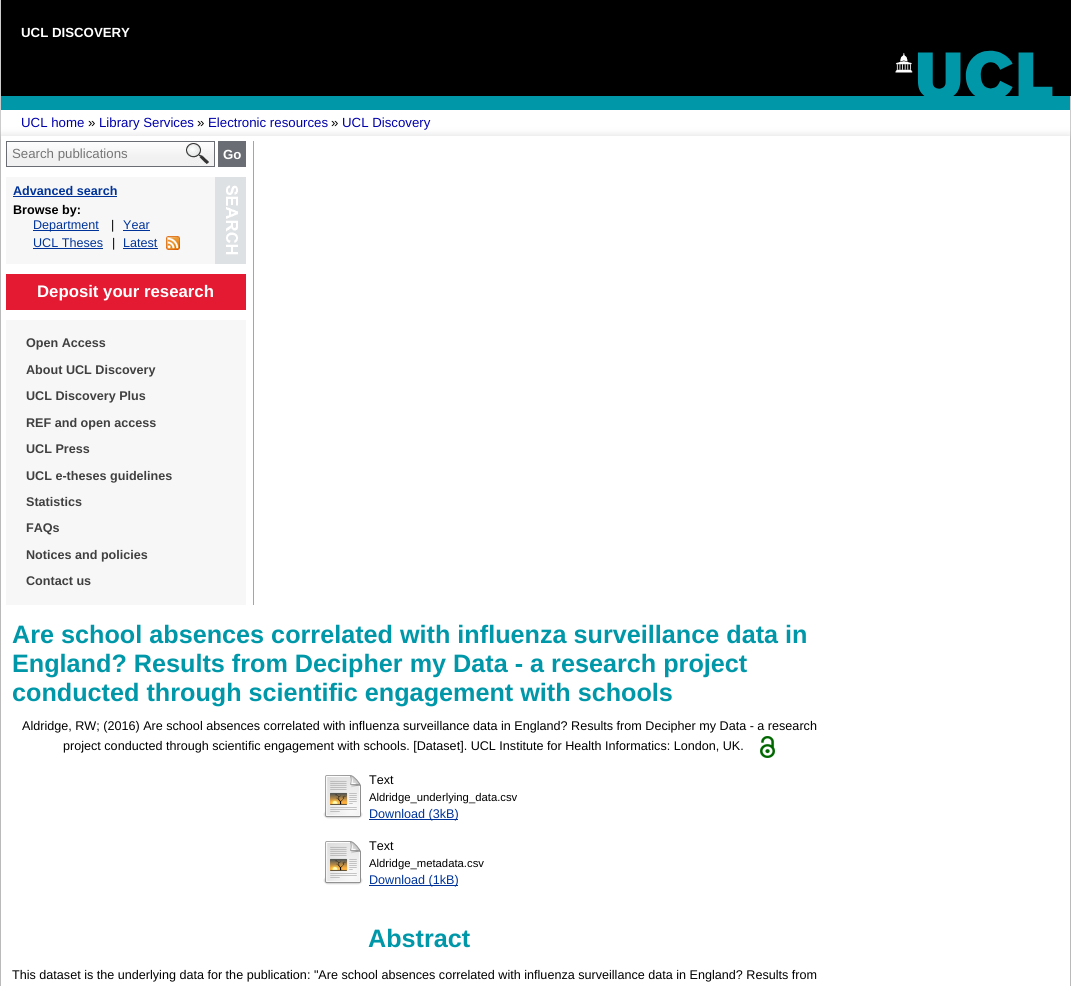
#include <cairo.h>
#include <math.h>
#include <stddef.h>

static cairo_t *c;
static void C(unsigned color){cairo_set_source_rgb(c, (color >> 16) / 255.0, (color >> 8 & 255) / 255.0, (color & 255) / 255.0);}
static void F(const char *family, double size, int italic, int bold){cairo_select_font_face(c, family, italic ? CAIRO_FONT_SLANT_ITALIC : CAIRO_FONT_SLANT_NORMAL,bold ? CAIRO_FONT_WEIGHT_BOLD : CAIRO_FONT_WEIGHT_NORMAL);cairo_set_font_size(c, size);}
static void T(double x, double y, const char *s){cairo_move_to(c, x, y);cairo_show_text(c, s);}
static void R(double x, double y, double w, double h){cairo_rectangle(c, x, y, w, h);cairo_fill(c);}
static void Q(double x, double y, double w, double h, double r){cairo_new_sub_path(c);cairo_arc(c, x + w - r, y + h - r, r, 0, M_PI / 2);cairo_arc(c, x + r, y + h - r, r, M_PI / 2, M_PI);cairo_arc(c, x + r, y + r, r, M_PI, 1.5 * M_PI);cairo_arc(c, x + w - r, y + r, r, 1.5 * M_PI, 2 * M_PI);cairo_close_path(c);}
static void S(double x, double y, double w, double h, double r, double blur, double alpha){cairo_push_group_with_content(c, CAIRO_CONTENT_ALPHA);cairo_set_operator(c, CAIRO_OPERATOR_SOURCE);for (int i = 15; i >= -15 && fmin(w, h) + blur * i / 3 > 0; i -= 2) {double e = blur * i / 6;cairo_set_source_rgba(c, 0, 0, 0, alpha * erfc((i - 1) / 8.5) / 2);Q(x - e, y - e, w + 2 * e, h + 2 * e, fmax(0, fmin(r + e + blur * .6, fmin(w, h) / 2 + e)));cairo_fill(c);}cairo_pattern_t *soft = cairo_pop_group(c);cairo_mask(c, soft);cairo_pattern_destroy(soft);}
static void I(const char *path, double x, double y, double w, double h){cairo_surface_t *image = cairo_image_surface_create_from_png(path);cairo_save(c);cairo_set_source_surface(c, image, x, y);cairo_rectangle(c, x, y, w, h);cairo_fill(c);cairo_restore(c);cairo_surface_destroy(image);}
int main(void) {
cairo_surface_t *surface = cairo_image_surface_create(CAIRO_FORMAT_RGB24, 1071, 986);
c = cairo_create(surface);
cairo_font_options_t *options = cairo_font_options_create();
cairo_font_options_set_hint_metrics(options, CAIRO_HINT_METRICS_OFF);
cairo_font_options_set_hint_style(options, CAIRO_HINT_STYLE_NONE);
cairo_set_font_options(c, options);
cairo_set_miter_limit(c, 4);
C(0xcccccc);
cairo_paint(c);
C(0x0097a9);
R(1,50,1069,60);
I("1.png",1,0,1070,96);
F("Liberation Sans",13.25,0,1);
C(0xffffff);
T(21,37,"UCL DISCOVERY");
R(1,110,1069,26);
C(0x505050);
S(1,138,1069,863,0,5,.3);
F("Liberation Sans",13.25,0,0);
C(0x0000aa);
T(21,127,"UCL home");
C(0x000000);
T(88,127,"»");
C(0x0000aa);
T(99,127,"Library Services");
C(0x000000);
T(197,127,"»");
C(0x0000aa);
T(208,127,"Electronic resources");
C(0x000000);
T(331,127,"»");
C(0x0000aa);
T(342,127,"UCL Discovery");
C(0xffffff);
R(1,136,1069,850);
C(0xa5a5a5);
R(253,141,1,464);
I("2.png",7,142,207,24);
cairo_rectangle(c,6.5,141.5,208,25);
C(0x6a6d73);
cairo_set_line_width(c,1);
cairo_stroke(c);
C(0x757575);
T(12,158,"Search publications");
C(0x6a6d73);
R(218,141,28,26);
F("Liberation Sans",13.25,0,1);
C(0xffffff);
T(223,159,"Go");
C(0xf7f7f7);
R(6,177,209,87);
I("3.png",215,177,31,87);
F("Liberation Sans",12.6,0,1);
C(0x003399);
T(13,195,"Advanced search");
R(13,196,104,1);
C(0x000000);
T(13,214,"Browse by:");
C(0x003399);
R(33,230,66,1);
F("Liberation Sans",12.6,0,0);
T(33,229,"Department");
C(0x000000);
T(111,229,"|");
C(0x003399);
T(123,229,"Year");
R(123,230,27,1);
T(33,247,"UCL Theses");
R(33,248,70,1);
C(0x000000);
T(112,247,"|");
C(0x003399);
T(123,247,"Latest");
R(123,248,35,1);
I("4.png",166,236,14,14);
C(0xe31a32);
R(6,274,240,36);
F("Liberation Sans",16.75,0,1);
C(0xffffff);
T(37,297,"Deposit your research");
C(0xf7f7f7);
R(6,320,240,285);
F("Liberation Sans",12.6,0,1);
C(0x404040);
T(26,347,"Open Access");
T(26,374,"About UCL Discovery");
T(26,400,"UCL Discovery Plus");
T(26,427,"REF and open access");
T(26,453,"UCL Press");
T(26,480,"UCL e-theses guidelines");
T(26,506,"Statistics");
T(26,532,"FAQs");
T(26,559,"Notices and policies");
T(26,585,"Contact us");
F("Liberation Sans",25.2,0,1);
C(0x0097a9);
T(12,643,"Are school absences correlated with influenza surveillance data in");
T(12,672,"England? Results from Decipher my Data - a research project");
T(12,701,"conducted through scientific engagement with schools");
F("Liberation Sans",12.6,0,0);
C(0x000000);
T(22,730,"Aldridge, RW; (2016) Are school absences correlated with influenza surveillance data in England? Results from Decipher my Data - a research");
T(63,750,"project conducted through scientific engagement with schools. [Dataset]. UCL Institute for Health Informatics: London, UK.");
I("5.png",760,736,15,22);
I("6.png",323,775,40,44);
T(369,784,"Text");
F("Liberation Sans",11.3,0,0);
T(369,801,"Aldridge_underlying_data.csv");
C(0x003399);
R(369,819,89,1);
F("Liberation Sans",12.6,0,0);
T(369,818,"Download (3kB)");
I("6.png",323,841,40,44);
C(0x000000);
T(369,850,"Text");
F("Liberation Sans",11.3,0,0);
T(369,867,"Aldridge_metadata.csv");
C(0x003399);
R(369,885,89,1);
F("Liberation Sans",12.6,0,0);
T(369,884,"Download (1kB)");
F("Liberation Sans",25.2,0,1);
C(0x0097a9);
T(368,947,"Abstract");
F("Liberation Sans",12.6,0,0);
C(0x000000);
T(12,979,"This dataset is the underlying data for the publication: \"Are school absences correlated with influenza surveillance data in England? Results from");
cairo_surface_write_to_png(surface, "o.png");
cairo_font_options_destroy(options);
cairo_destroy(c);
cairo_surface_destroy(surface);
return 0;
}
